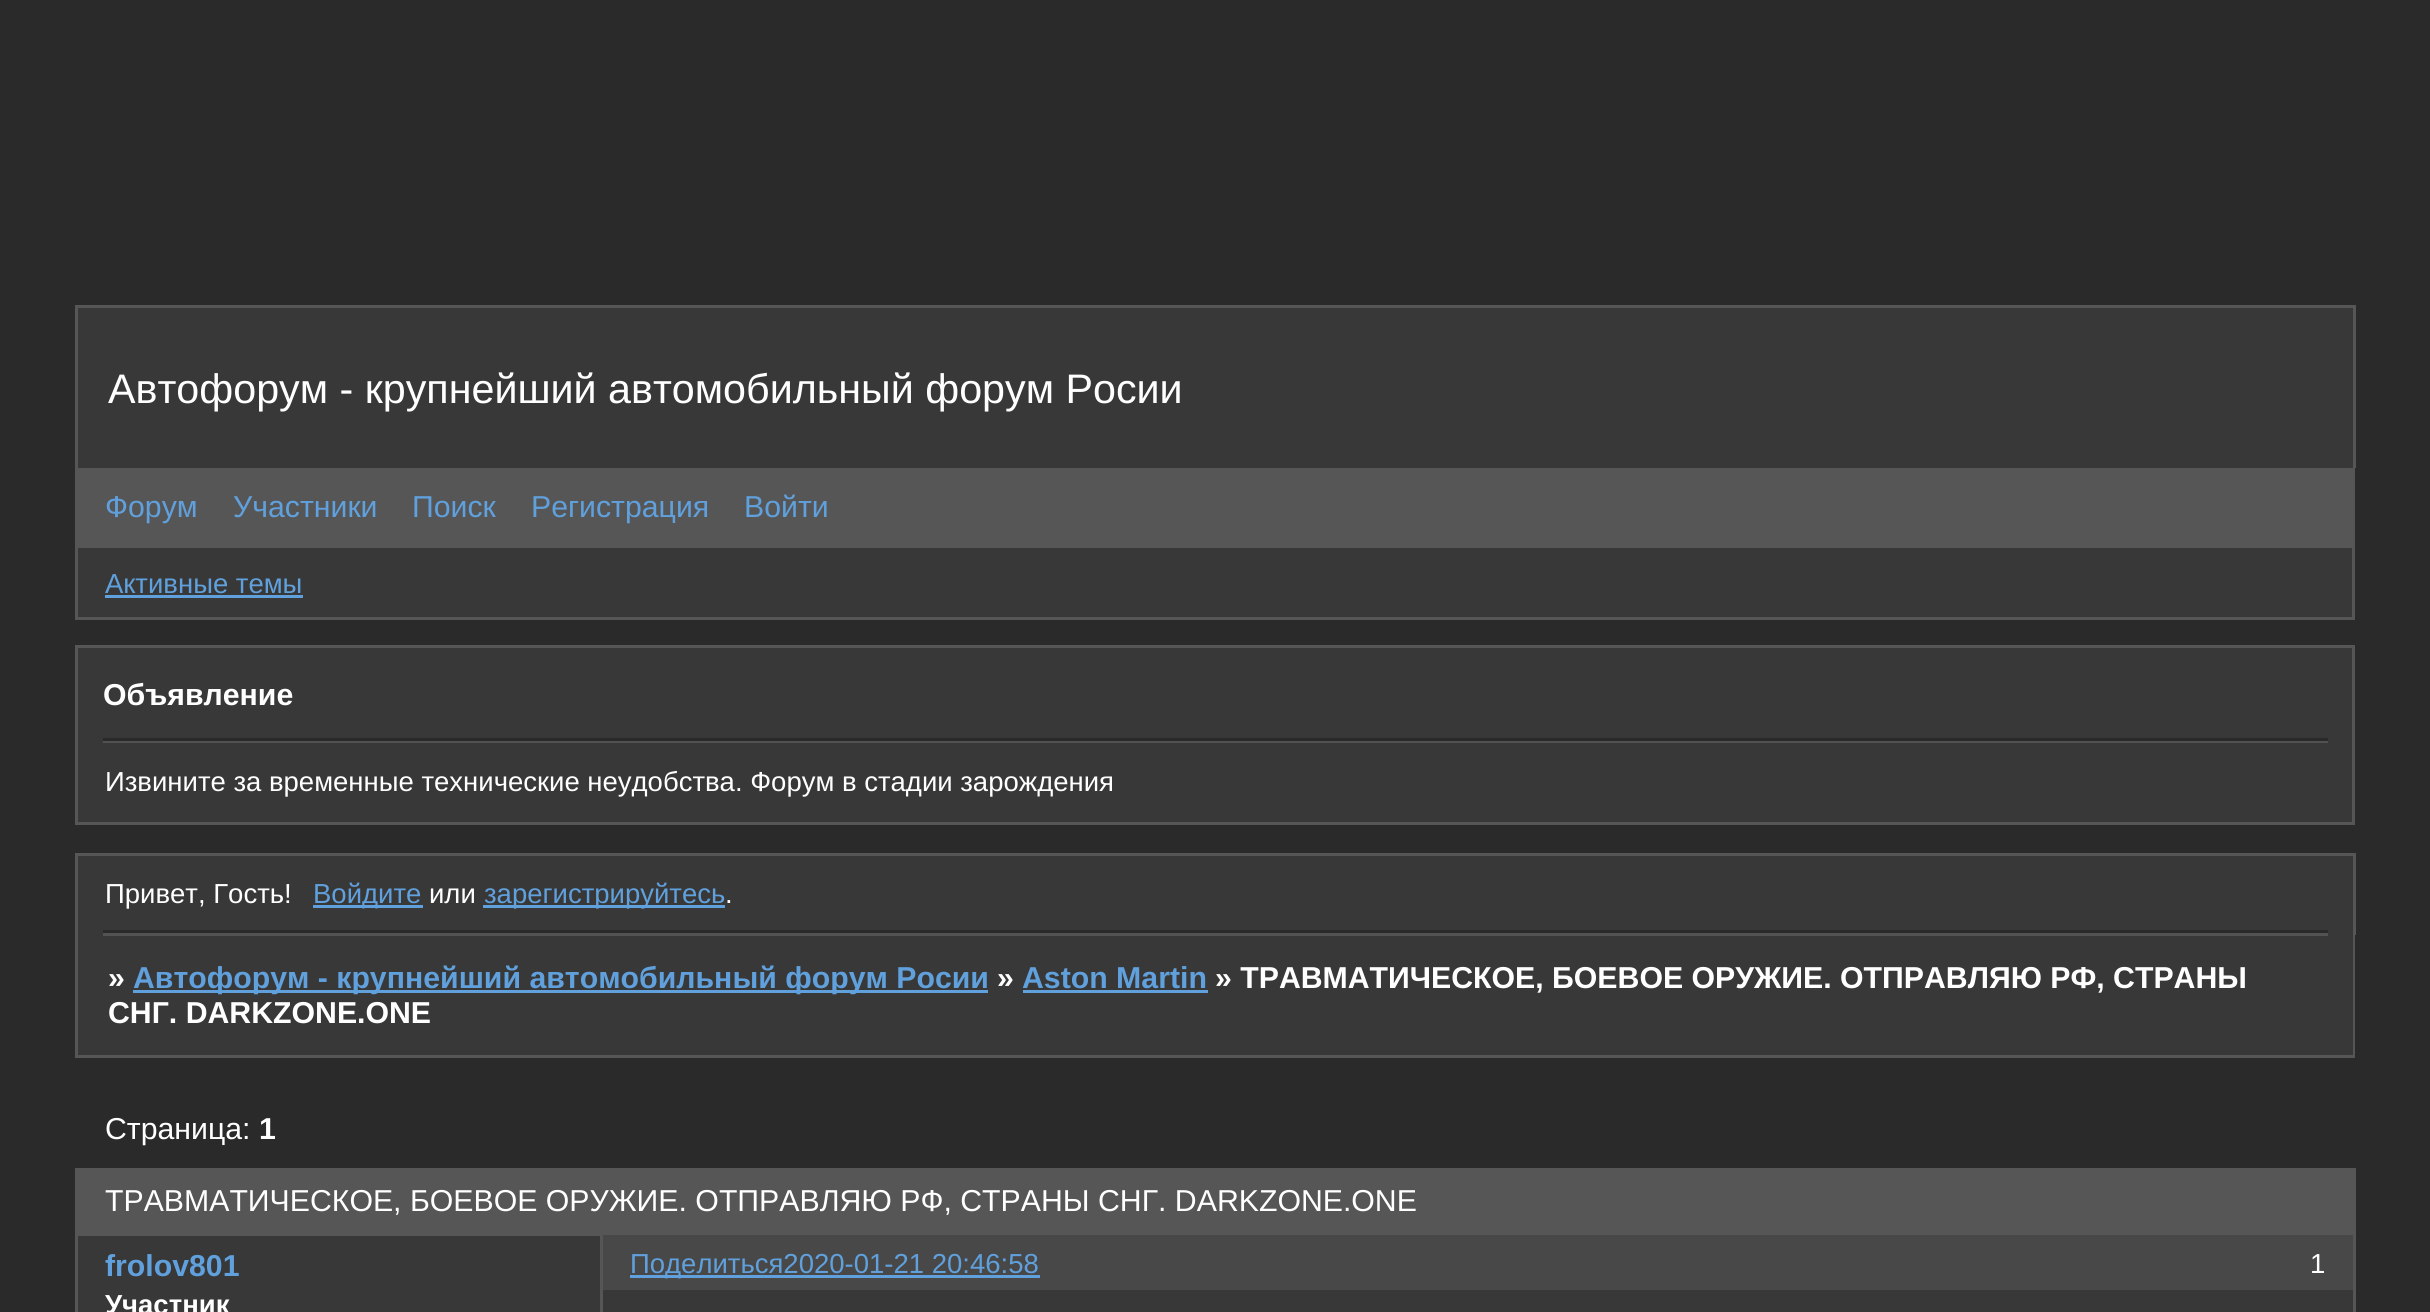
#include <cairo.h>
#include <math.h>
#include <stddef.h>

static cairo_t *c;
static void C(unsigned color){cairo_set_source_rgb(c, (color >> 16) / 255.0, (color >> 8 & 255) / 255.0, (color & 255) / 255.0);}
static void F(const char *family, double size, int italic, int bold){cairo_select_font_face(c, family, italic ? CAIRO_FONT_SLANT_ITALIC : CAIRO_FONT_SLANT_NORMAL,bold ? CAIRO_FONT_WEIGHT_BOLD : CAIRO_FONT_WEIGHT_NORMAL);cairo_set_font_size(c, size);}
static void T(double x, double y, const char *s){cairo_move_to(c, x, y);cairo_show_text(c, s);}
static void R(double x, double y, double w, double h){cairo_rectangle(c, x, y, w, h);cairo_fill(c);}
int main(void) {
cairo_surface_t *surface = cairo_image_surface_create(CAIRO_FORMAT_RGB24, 2430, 1312);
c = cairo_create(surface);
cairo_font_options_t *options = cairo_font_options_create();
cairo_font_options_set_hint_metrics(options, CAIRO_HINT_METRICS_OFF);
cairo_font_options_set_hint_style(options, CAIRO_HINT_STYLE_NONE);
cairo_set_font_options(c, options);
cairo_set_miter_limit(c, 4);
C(0x2a2a2a);
cairo_paint(c);
C(0x383838);
R(78,308,2275,160);
C(0x565656);
R(75,305,2280,3);
R(2353,305,3,163);
R(75,305,3,163);
F("Liberation Sans",41.25,0,0);
C(0xffffff);
T(108,403,"Автофорум - крупнейший автомобильный форум Росии");
C(0x565656);
R(75,468,2280,77);
F("Liberation Sans",30.25,0,0);
C(0x60a0dc);
T(105,517,"Форум");
T(233,517,"Участники");
T(412,517,"Поиск");
T(531,517,"Регистрация");
T(744,517,"Войти");
C(0x383838);
cairo_rectangle(c,76.5,546.5,2277,72);
cairo_fill_preserve(c);
C(0x565656);
cairo_set_line_width(c,3);
cairo_stroke(c);
F("Liberation Sans",27.5,0,0);
C(0x60a0dc);
T(105,593,"Активные темы");
R(105,595,198,3);
C(0x383838);
cairo_rectangle(c,76.5,646.5,2277,177);
cairo_fill_preserve(c);
C(0x565656);
cairo_stroke(c);
C(0x525252);
R(103,741,2225,2);
C(0x2a2a2a);
R(103,738,2225,3);
F("Liberation Sans",30.25,0,1);
C(0xffffff);
T(103,705,"Объявление");
F("Liberation Sans",27.5,0,0);
T(105,791,"Извините за временные технические неудобства. Форум в стадии зарождения");
C(0x383838);
R(78,856,2275,199);
C(0x565656);
R(75,853,2280,3);
R(2353,853,3,82);
R(75,853,3,82);
C(0xffffff);
T(105,903,"Привет, Гость!");
C(0x60a0dc);
R(313,905,110,3);
T(313,903,"Войдите");
C(0xffffff);
T(429,903,"или");
C(0x60a0dc);
R(483,905,242,3);
T(484,903,"зарегистрируйтесь");
C(0xffffff);
T(725,903,".");
C(0x2a2a2a);
R(103,930,2225,3);
C(0x525252);
R(103,933,2225,3);
C(0x565656);
R(2353,930,2,128);
R(75,1055,2280,3);
R(75,930,3,128);
F("Liberation Sans",30.25,0,1);
C(0xffffff);
T(108,988,"»");
C(0x60a0dc);
R(133,990,855,3);
T(133,988,"Автофорум - крупнейший автомобильный форум Росии");
C(0xffffff);
T(997,988,"»");
C(0x60a0dc);
T(1022,988,"Aston Martin");
R(1023,990,185,3);
C(0xffffff);
T(1215,988,"» ТРАВМАТИЧЕСКОЕ, БОЕВОЕ ОРУЖИЕ. ОТПРАВЛЯЮ РФ, СТРАНЫ");
T(108,1023,"СНГ. DARKZONE.ONE");
F("Liberation Sans",30.25,0,0);
T(105,1139,"Страница:");
F("Liberation Sans",30.25,0,1);
T(259,1139,"1");
C(0x565656);
R(75,1168,2281,65);
F("Liberation Sans",30.25,0,0);
C(0xffffff);
T(105,1211,"ТРАВМАТИЧЕСКОЕ, БОЕВОЕ ОРУЖИЕ. ОТПРАВЛЯЮ РФ, СТРАНЫ СНГ. DARKZONE.ONE");
C(0x565656);
R(75,1233,2280,3);
R(600,1235,3,58);
C(0x383838);
R(78,1290,2275,22);
R(78,1236,522,54);
F("Liberation Sans",30.25,0,1);
C(0x60a0dc);
T(105,1276,"frolov801");
F("Liberation Sans",27.5,0,1);
C(0xffffff);
T(105,1314,"Участник");
C(0x565656);
R(600,1290,3,22);
R(2353,1233,3,79);
R(75,1233,3,79);
C(0x484848);
R(603,1235,1750,55);
C(0x60a0dc);
R(630,1275,410,3);
F("Liberation Sans",27.5,0,0);
T(630,1273,"Поделиться2020-01-21 20:46:58");
C(0xffffff);
T(2310,1273,"1");
cairo_surface_write_to_png(surface, "o.png");
cairo_font_options_destroy(options);
cairo_destroy(c);
cairo_surface_destroy(surface);
return 0;
}
